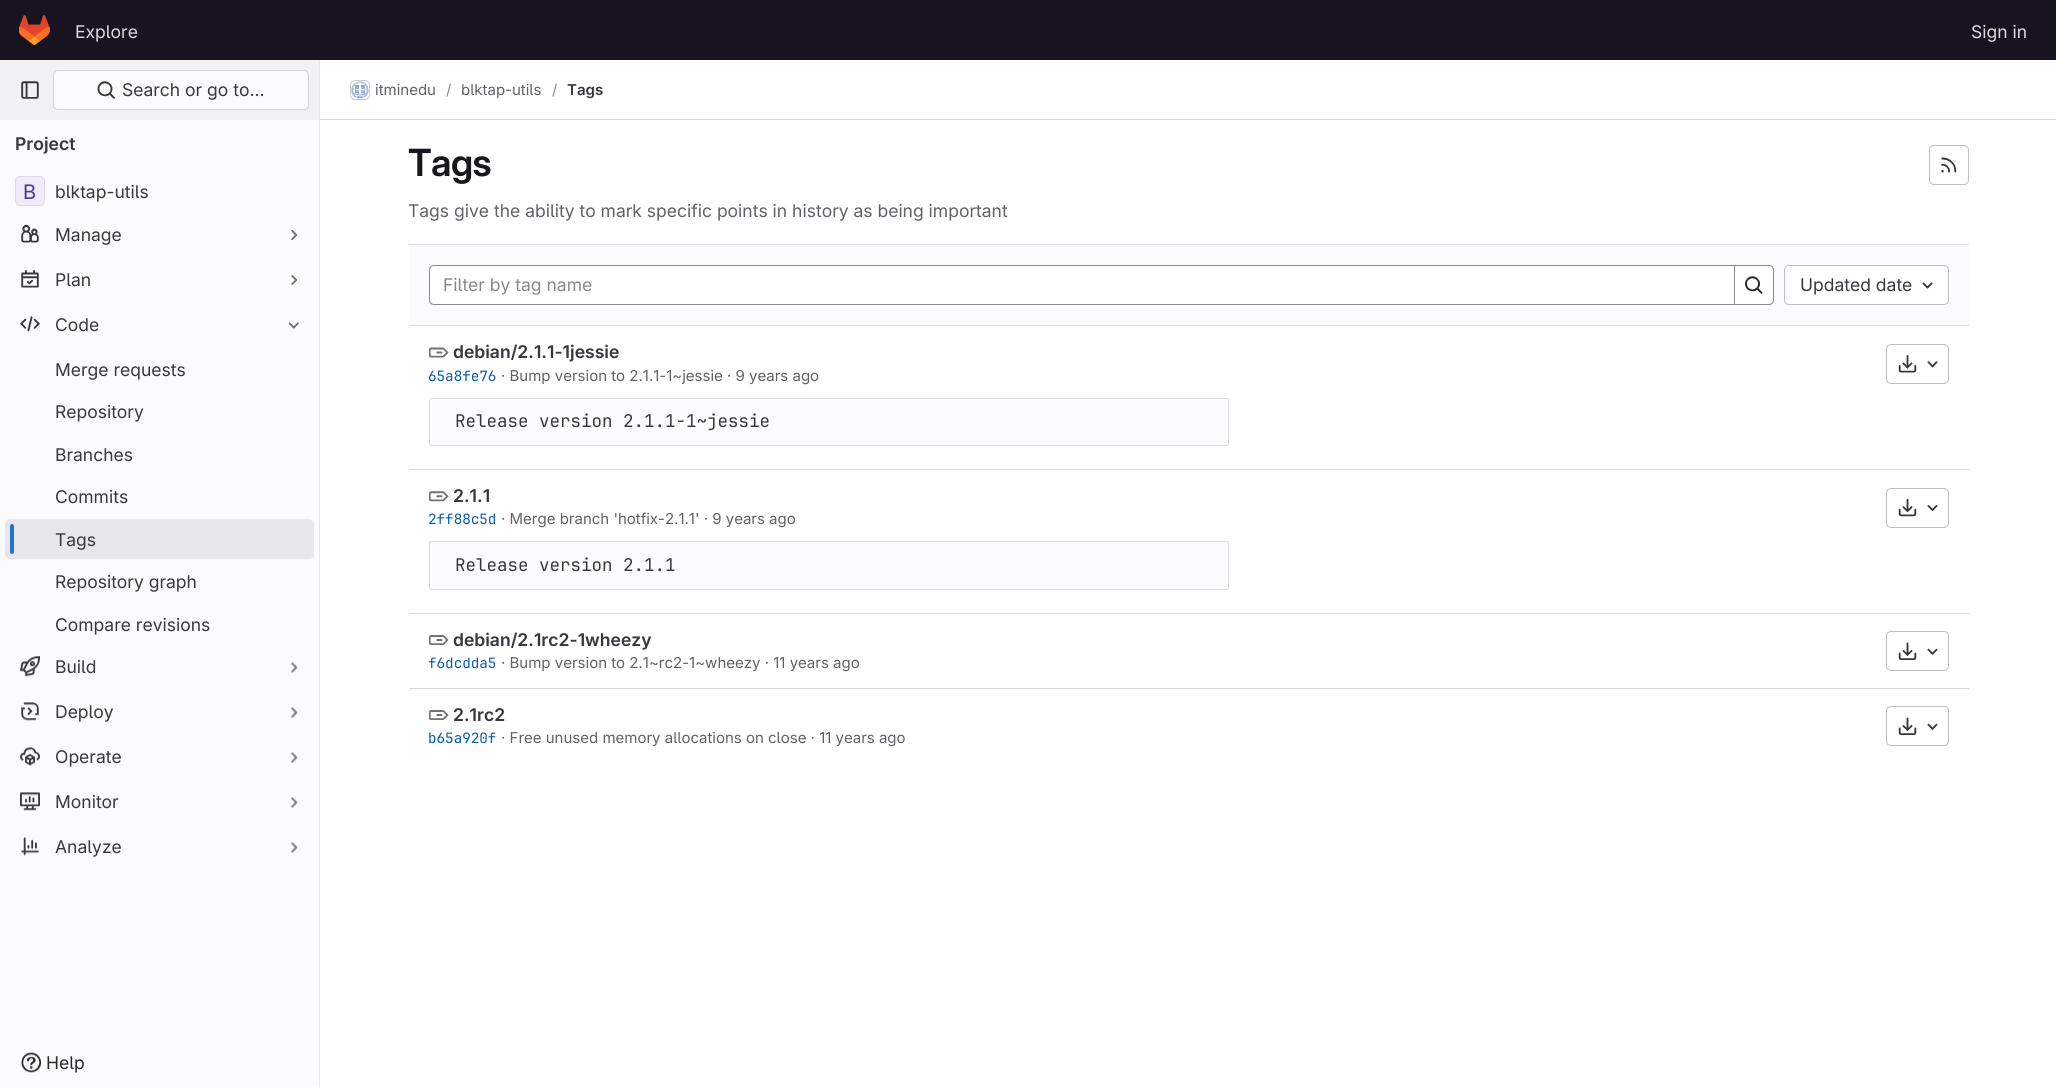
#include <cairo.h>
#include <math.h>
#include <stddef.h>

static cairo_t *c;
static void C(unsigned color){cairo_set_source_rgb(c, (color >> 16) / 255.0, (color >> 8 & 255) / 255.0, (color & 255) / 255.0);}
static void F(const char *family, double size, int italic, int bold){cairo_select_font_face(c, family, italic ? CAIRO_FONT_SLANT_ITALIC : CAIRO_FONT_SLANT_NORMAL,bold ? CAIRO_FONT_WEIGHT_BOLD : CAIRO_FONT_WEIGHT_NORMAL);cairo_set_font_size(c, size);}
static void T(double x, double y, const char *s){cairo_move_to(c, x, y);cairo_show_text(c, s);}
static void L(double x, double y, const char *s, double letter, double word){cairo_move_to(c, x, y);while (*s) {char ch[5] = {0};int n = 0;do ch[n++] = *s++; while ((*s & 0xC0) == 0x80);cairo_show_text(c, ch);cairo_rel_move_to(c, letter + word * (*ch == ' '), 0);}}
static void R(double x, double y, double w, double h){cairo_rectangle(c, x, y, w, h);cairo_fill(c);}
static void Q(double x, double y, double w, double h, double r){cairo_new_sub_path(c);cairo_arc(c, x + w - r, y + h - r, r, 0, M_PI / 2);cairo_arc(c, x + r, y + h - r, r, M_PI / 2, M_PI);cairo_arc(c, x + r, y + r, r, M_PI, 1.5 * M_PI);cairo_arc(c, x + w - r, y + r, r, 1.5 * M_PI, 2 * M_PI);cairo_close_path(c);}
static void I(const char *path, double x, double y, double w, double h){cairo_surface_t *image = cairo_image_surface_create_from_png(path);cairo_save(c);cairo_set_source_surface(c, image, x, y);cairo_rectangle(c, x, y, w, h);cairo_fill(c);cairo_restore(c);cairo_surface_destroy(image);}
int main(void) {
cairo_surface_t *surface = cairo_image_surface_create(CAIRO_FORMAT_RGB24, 2056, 1087);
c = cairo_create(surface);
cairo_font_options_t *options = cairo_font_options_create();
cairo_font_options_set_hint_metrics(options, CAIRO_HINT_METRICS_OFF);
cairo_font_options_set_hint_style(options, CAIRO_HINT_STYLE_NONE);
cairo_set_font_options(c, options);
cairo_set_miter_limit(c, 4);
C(0xffffff);
cairo_paint(c);
C(0x171321);
R(0,0,2056,60);
I("1.png",19,15,31,30);
F("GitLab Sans",17.5,0,0);
C(0xdcdcde);
T(75,38,"Explore");
T(1971,38,"Sign in");
C(0xfbfafd);
R(0,120,319,967);
C(0xe7e6e9);
R(319,60,1,1027);
C(0xf1f0f3);
R(0,60,319,60);
I("2.png",21,81,18,18);
C(0xfbfafd);
Q(53,70,256,40,5);
cairo_fill(c);
Q(53.5,70.5,255,39,4.5);
cairo_set_source_rgba(c,0.02,0.02,0.024,0.16);
cairo_set_line_width(c,1);
cairo_stroke(c);
I("3.png",97,81,18,18);
C(0x3a383f);
T(122,96,"Search or go to…");
F("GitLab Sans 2 SemiBold",17.5,0,0);
T(15,150,"Project");
C(0xefebfa);
Q(15,176,30,30,5);
cairo_fill(c);
Q(15.5,176.5,29,29,4.5);
cairo_set_source_rgba(c,0.02,0.02,0.024,0.08);
cairo_stroke(c);
F("GitLab Sans 2",20,0,0);
C(0x453894);
T(23,199,"B");
F("GitLab Sans",17.5,0,0);
C(0x3a383f);
T(55,198,"blktap-utils");
I("4.png",21,224,18,19);
T(55,241,"Manage");
I("5.png",291,230,7,10);
I("6.png",21,270,18,18);
T(55,286,"Plan");
I("5.png",291,275,7,10);
I("7.png",20,316,20,16);
T(55,331,"Code");
I("8.png",288,322,11,7);
T(55,376,"Merge requests");
T(55,418,"Repository");
T(55,461,"Branches");
T(55,503,"Commits");
C(0xe7e6e9);
Q(5,519,309,40,5);
cairo_fill(c);
C(0x1f75cb);
Q(10,524,4,30,2);
cairo_fill(c);
C(0x3a383f);
T(55,546,"Tags");
T(55,588,"Repository graph");
T(55,631,"Compare revisions");
I("9.png",20,656,20,21);
T(55,673,"Build");
I("10.png",290,662,8,11);
I("11.png",21,702,18,19);
T(55,718,"Deploy");
I("10.png",290,707,8,11);
I("12.png",20,747,20,19);
T(55,763,"Operate");
I("10.png",290,752,8,11);
I("13.png",20,792,20,19);
T(55,808,"Monitor");
I("10.png",290,797,8,11);
I("14.png",21,837,18,19);
T(55,853,"Analyze");
I("10.png",290,842,8,11);
I("15.png",21,1052,21,21);
C(0x28272d);
T(46,1069,"Help");
C(0xdcdcde);
R(320,119,1736,1);
Q(350.5,80.5,19,19,4.5);
cairo_stroke(c);
I("16.png",351,81,18,18);
Q(350.5,80.5,19,19,4.5);
cairo_set_source_rgba(c,0.02,0.02,0.024,0.08);
cairo_stroke(c);
F("GitLab Sans",15,0,0);
C(0x626168);
T(375,95,"itminedu");
C(0x89888d);
T(446,95,"/");
C(0x626168);
T(461,95,"blktap-utils");
C(0x89888d);
T(552,95,"/");
F("GitLab Sans 2 SemiBold",15,0,0);
C(0x3a383f);
T(567,95,"Tags");
F("GitLab Sans SemiBold",37.5,0,0);
C(0x18171d);
L(408,176,"Tags",-.5,0);
Q(1929.5,145.5,39,39,4.5);
C(0xbfbfc3);
cairo_stroke(c);
I("17.png",1941,157,16,16);
F("GitLab Sans",17.5,0,0);
C(0x626168);
T(408,217,"Tags give the ability to mark specific points in history as being important");
C(0xfbfafd);
R(409,245,1560,80);
C(0xdcdcde);
R(409,244,1560,1);
R(409,325,1560,1);
C(0xffffff);
cairo_new_path(c);
cairo_move_to(c,434,265.5);
cairo_line_to(c,1734.5,265.5);
cairo_line_to(c,1734.5,304.5);
cairo_line_to(c,434,304.5);
cairo_curve_to(c,431.5,304.5,429.5,302.5,429.5,300);
cairo_line_to(c,429.5,270);
cairo_curve_to(c,429.5,267.5,431.5,265.5,434,265.5);
cairo_close_path(c);
cairo_fill_preserve(c);
C(0x89888d);
cairo_stroke(c);
T(443,291,"Filter by tag name");
C(0xffffff);
cairo_new_path(c);
cairo_move_to(c,1734.5,265.5);
cairo_line_to(c,1769,265.5);
cairo_curve_to(c,1771.5,265.5,1773.5,267.5,1773.5,270);
cairo_line_to(c,1773.5,300);
cairo_curve_to(c,1773.5,302.5,1771.5,304.5,1769,304.5);
cairo_line_to(c,1734.5,304.5);
cairo_close_path(c);
cairo_fill_preserve(c);
C(0x89888d);
cairo_stroke(c);
I("18.png",1745,276,18,18);
C(0xffffff);
Q(1784.5,265.5,164,39,4.5);
cairo_fill_preserve(c);
C(0xbfbfc3);
cairo_stroke(c);
C(0x3a383f);
T(1800,291,"Updated date");
I("19.png",1922,282,11,7);
C(0xdcdcde);
R(409,469,1560,1);
I("20.png",429,347,20,11);
F("GitLab Sans 2 SemiBold",17.5,0,0);
C(0x3a383f);
T(453,358,"debian/2.1.1-1jessie");
F("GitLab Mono",14.25,0,0);
C(0x0b5cad);
T(428,381,"65a8fe76");
F("GitLab Sans",15,0,0);
C(0x626168);
T(501,381,"· Bump version to 2.1.1-1~jessie · 9 years ago");
C(0xfbfafd);
Q(429.5,398.5,799,47,2);
cairo_fill_preserve(c);
C(0xdcdcde);
cairo_stroke(c);
F("GitLab Mono",17.5,0,0);
C(0x3a383f);
T(455,427,"Release version 2.1.1-1~jessie");
Q(1886.5,344.5,62,39,4.5);
C(0xbfbfc3);
cairo_stroke(c);
I("21.png",1898,355,19,18);
I("22.png",1927,361,11,7);
C(0xdcdcde);
R(409,613,1560,1);
I("23.png",429,491,20,11);
F("GitLab Sans 2 SemiBold",17.5,0,0);
C(0x3a383f);
T(453,502,"2.1.1");
F("GitLab Mono",14.25,0,0);
C(0x0b5cad);
T(428,524,"2ff88c5d");
F("GitLab Sans",15,0,0);
C(0x626168);
T(501,524,"· Merge branch 'hotfix-2.1.1' · 9 years ago");
C(0xfbfafd);
Q(429.5,541.5,799,48,2);
cairo_fill_preserve(c);
C(0xdcdcde);
cairo_stroke(c);
F("GitLab Mono",17.5,0,0);
C(0x3a383f);
T(455,571,"Release version 2.1.1");
Q(1886.5,488.5,62,39,4.5);
C(0xbfbfc3);
cairo_stroke(c);
I("24.png",1898,498,19,19);
I("25.png",1927,505,11,6);
C(0xdcdcde);
R(409,688,1560,1);
I("26.png",429,635,20,10);
F("GitLab Sans 2 SemiBold",17.5,0,0);
C(0x3a383f);
T(453,646,"debian/2.1rc2-1wheezy");
F("GitLab Mono",14.25,0,0);
C(0x0b5cad);
T(428,668,"f6dcdda5");
F("GitLab Sans",15,0,0);
C(0x626168);
T(501,668,"· Bump version to 2.1~rc2-1~wheezy · 11 years ago");
Q(1886.5,631.5,62,39,4.5);
C(0xbfbfc3);
cairo_stroke(c);
I("27.png",1898,642,19,18);
I("28.png",1927,648,11,7);
I("26.png",429,710,20,10);
F("GitLab Sans 2 SemiBold",17.5,0,0);
C(0x3a383f);
T(453,721,"2.1rc2");
F("GitLab Mono",14.25,0,0);
C(0x0b5cad);
T(428,743,"b65a920f");
F("GitLab Sans",15,0,0);
C(0x626168);
T(501,743,"· Free unused memory allocations on close · 11 years ago");
Q(1886.5,706.5,62,39,4.5);
C(0xbfbfc3);
cairo_stroke(c);
I("27.png",1898,717,19,18);
I("28.png",1927,723,11,7);
cairo_surface_write_to_png(surface, "o.png");
cairo_font_options_destroy(options);
cairo_destroy(c);
cairo_surface_destroy(surface);
return 0;
}
